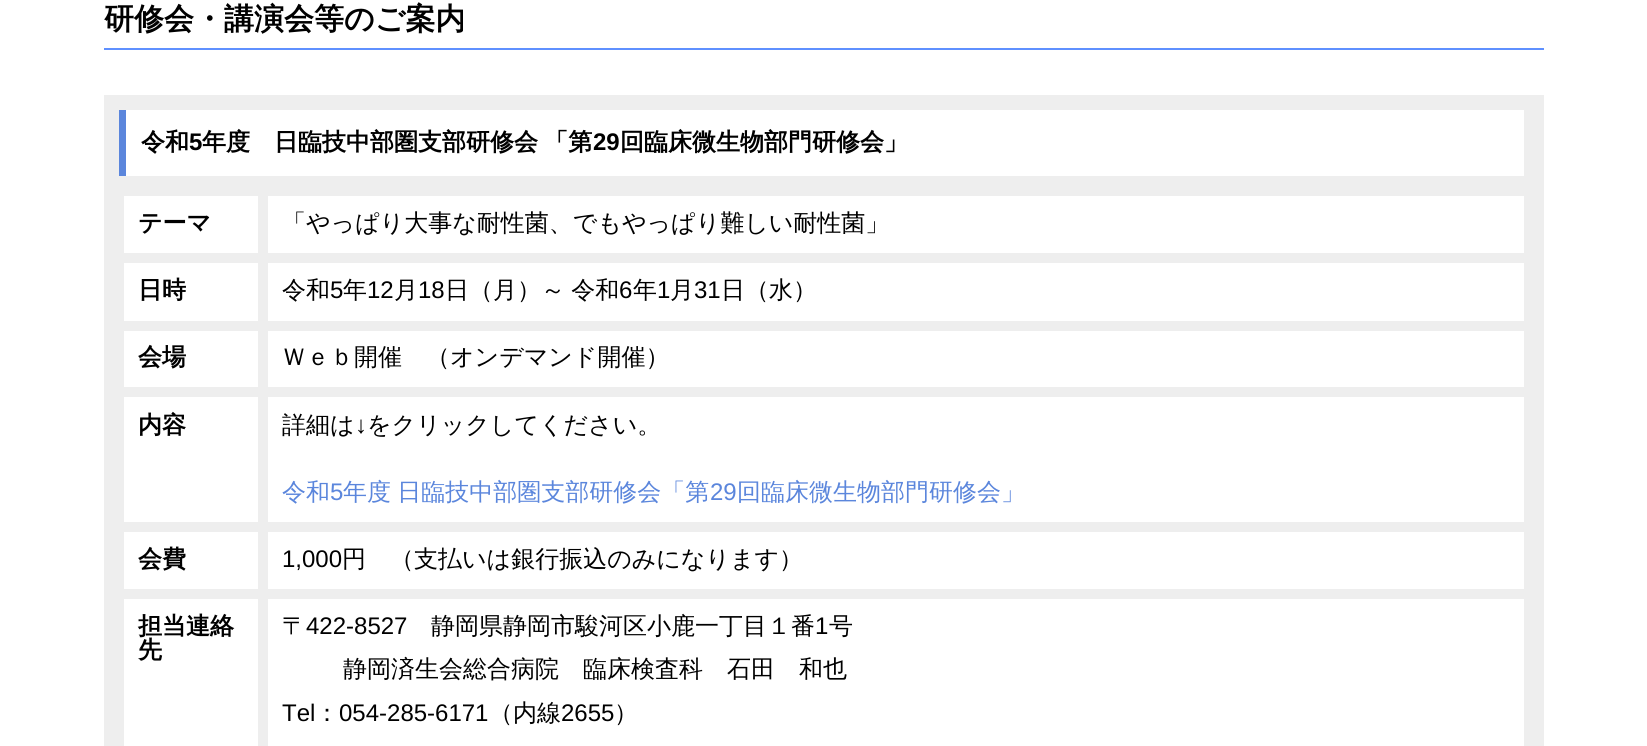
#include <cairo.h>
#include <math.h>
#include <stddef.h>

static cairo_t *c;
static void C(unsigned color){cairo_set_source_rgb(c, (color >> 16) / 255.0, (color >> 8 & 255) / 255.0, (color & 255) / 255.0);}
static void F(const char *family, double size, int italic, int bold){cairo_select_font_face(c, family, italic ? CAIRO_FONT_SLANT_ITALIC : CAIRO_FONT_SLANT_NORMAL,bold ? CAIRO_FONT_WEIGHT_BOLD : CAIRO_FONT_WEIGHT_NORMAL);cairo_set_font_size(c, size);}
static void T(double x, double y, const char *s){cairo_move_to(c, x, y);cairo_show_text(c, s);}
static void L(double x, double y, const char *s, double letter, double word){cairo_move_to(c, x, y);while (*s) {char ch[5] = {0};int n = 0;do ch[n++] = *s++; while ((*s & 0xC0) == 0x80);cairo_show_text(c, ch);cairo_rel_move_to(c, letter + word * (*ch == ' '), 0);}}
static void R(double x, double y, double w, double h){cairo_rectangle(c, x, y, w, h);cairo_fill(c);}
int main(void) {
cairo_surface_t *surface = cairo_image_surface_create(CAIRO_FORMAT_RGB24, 1647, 746);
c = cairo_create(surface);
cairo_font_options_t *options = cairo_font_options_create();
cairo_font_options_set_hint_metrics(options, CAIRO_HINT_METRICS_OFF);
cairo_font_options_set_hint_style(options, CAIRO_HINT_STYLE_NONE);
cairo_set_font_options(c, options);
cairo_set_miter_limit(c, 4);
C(0xffffff);
cairo_paint(c);
C(0x5f90ff);
R(104,48,1440,2);
F("WenQuanYi Zen Hei",30,0,1);
C(0x000000);
T(104,29,"研修会・講演会等のご案内");
C(0xeeeeee);
R(104,95,1440,651);
C(0xffffff);
R(126,110,1398,66);
C(0x5b86dc);
R(119,110,7,66);
F("WenQuanYi Zen Hei",24,0,1);
C(0x000000);
T(141,150,"令和");
F("Liberation Sans",24,0,1);
T(189,150,"5");
F("WenQuanYi Zen Hei",24,0,1);
L(202,150,"年度　日臨技中部圏支部研修会 「第",0,-1);
F("Liberation Sans",24,0,1);
T(593,150,"29");
F("WenQuanYi Zen Hei",24,0,1);
T(620,150,"回臨床微生物部門研修会」");
C(0xffffff);
R(124,196,134,57);
C(0x000000);
T(138,231,"テーマ");
C(0xffffff);
R(268,196,1256,57);
F("WenQuanYi Zen Hei Medium",24,0,0);
C(0x000000);
T(282,231,"「やっぱり大事な耐性菌、でもやっぱり難しい耐性菌」");
C(0xffffff);
R(124,263,134,58);
F("WenQuanYi Zen Hei",24,0,1);
C(0x000000);
T(138,298,"日時");
C(0xffffff);
R(268,263,1256,58);
F("WenQuanYi Zen Hei Medium",24,0,0);
C(0x000000);
T(282,298,"令和");
F("Liberation Sans",24,0,0);
T(330,298,"5");
F("WenQuanYi Zen Hei Medium",24,0,0);
T(343,298,"年");
F("Liberation Sans",24,0,0);
T(367,298,"12");
F("WenQuanYi Zen Hei Medium",24,0,0);
T(394,298,"月");
F("Liberation Sans",24,0,0);
T(418,298,"18");
F("WenQuanYi Zen Hei Medium",24,0,0);
L(445,298,"日（月）～ 令和",0,-1);
F("Liberation Sans",24,0,0);
T(619,298,"6");
F("WenQuanYi Zen Hei Medium",24,0,0);
T(633,298,"年");
F("Liberation Sans",24,0,0);
T(657,298,"1");
F("WenQuanYi Zen Hei Medium",24,0,0);
T(670,298,"月");
F("Liberation Sans",24,0,0);
T(694,298,"31");
F("WenQuanYi Zen Hei Medium",24,0,0);
T(721,298,"日（水）");
C(0xffffff);
R(124,331,134,56);
F("WenQuanYi Zen Hei",24,0,1);
C(0x000000);
T(138,365,"会場");
C(0xffffff);
R(268,331,1256,56);
F("WenQuanYi Zen Hei Medium",24,0,0);
C(0x000000);
T(282,365,"Ｗｅｂ開催　（オンデマンド開催）");
C(0xffffff);
R(124,397,134,125);
F("WenQuanYi Zen Hei",24,0,1);
C(0x000000);
T(138,433,"内容");
C(0xffffff);
R(268,397,1256,125);
F("WenQuanYi Zen Hei Medium",24,0,0);
C(0x000000);
T(282,433,"詳細は");
F("Liberation Sans",24,0,0);
T(355,433,"↓");
F("WenQuanYi Zen Hei Medium",24,0,0);
T(367,433,"をクリックしてください。");
C(0x5b86dc);
T(282,500,"令和");
F("Liberation Sans",24,0,0);
T(330,500,"5");
F("WenQuanYi Zen Hei Medium",24,0,0);
L(343,500,"年度 日臨技中部圏支部研修会「第",0,-1);
F("Liberation Sans",24,0,0);
T(710,500,"29");
F("WenQuanYi Zen Hei Medium",24,0,0);
T(737,500,"回臨床微生物部門研修会」");
C(0xffffff);
R(124,532,134,57);
F("WenQuanYi Zen Hei",24,0,1);
C(0x000000);
T(138,567,"会費");
C(0xffffff);
R(268,532,1256,57);
F("Liberation Sans",24,0,0);
C(0x000000);
T(282,567,"1,000");
F("WenQuanYi Zen Hei Medium",24,0,0);
T(342,567,"円　（支払いは銀行振込のみになります）");
C(0xffffff);
R(124,599,134,147);
F("WenQuanYi Zen Hei",24,0,1);
C(0x000000);
T(138,634,"担当連絡");
T(138,658,"先");
C(0xffffff);
R(268,599,1256,147);
F("WenQuanYi Zen Hei Medium",24,0,0);
C(0x000000);
T(282,634,"〒");
F("Liberation Sans",24,0,0);
T(306,634,"422-8527");
F("WenQuanYi Zen Hei Medium",24,0,0);
T(431,634,"静岡県静岡市駿河区小鹿一丁目１番");
F("Liberation Sans",24,0,0);
T(815,634,"1");
F("WenQuanYi Zen Hei Medium",24,0,0);
T(829,634,"号");
T(343,677,"静岡済生会総合病院　臨床検査科　石田　和也");
F("Liberation Sans",24,0,0);
T(282,721,"Tel");
F("WenQuanYi Zen Hei Medium",24,0,0);
T(315,721,"：");
F("Liberation Sans",24,0,0);
T(339,721,"054-285-6171");
F("WenQuanYi Zen Hei Medium",24,0,0);
T(489,721,"（内線");
F("Liberation Sans",24,0,0);
T(561,721,"2655");
F("WenQuanYi Zen Hei Medium",24,0,0);
T(614,721,"）");
cairo_surface_write_to_png(surface, "o.png");
cairo_font_options_destroy(options);
cairo_destroy(c);
cairo_surface_destroy(surface);
return 0;
}
